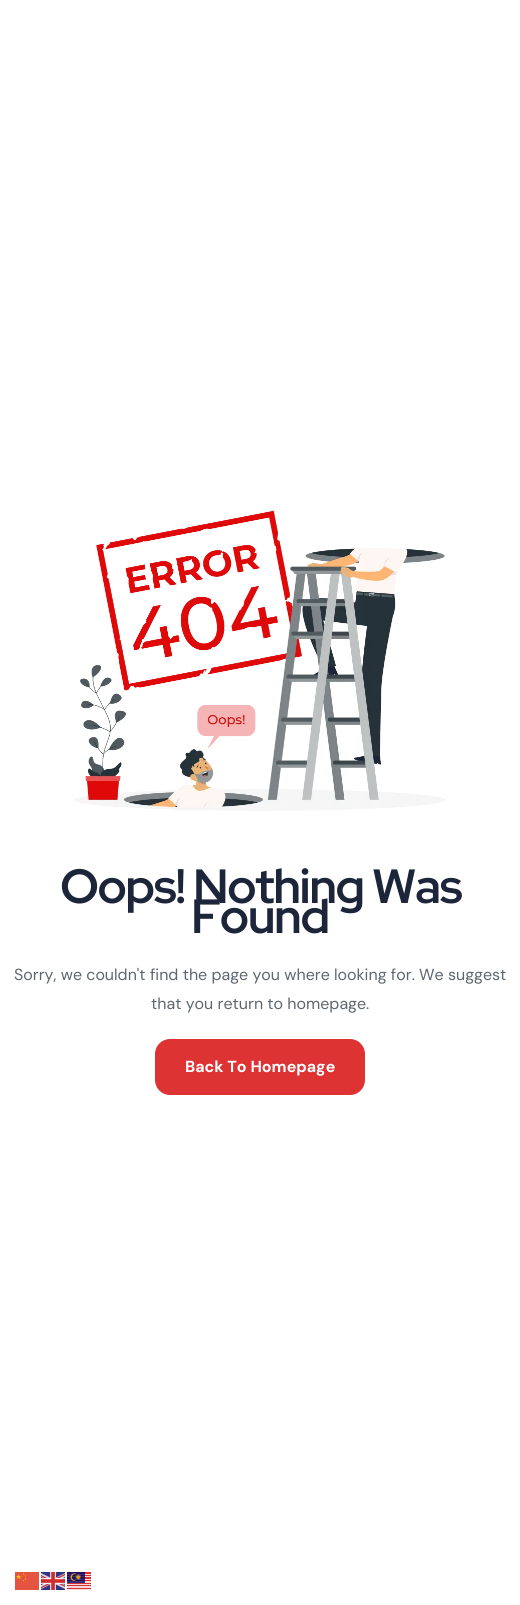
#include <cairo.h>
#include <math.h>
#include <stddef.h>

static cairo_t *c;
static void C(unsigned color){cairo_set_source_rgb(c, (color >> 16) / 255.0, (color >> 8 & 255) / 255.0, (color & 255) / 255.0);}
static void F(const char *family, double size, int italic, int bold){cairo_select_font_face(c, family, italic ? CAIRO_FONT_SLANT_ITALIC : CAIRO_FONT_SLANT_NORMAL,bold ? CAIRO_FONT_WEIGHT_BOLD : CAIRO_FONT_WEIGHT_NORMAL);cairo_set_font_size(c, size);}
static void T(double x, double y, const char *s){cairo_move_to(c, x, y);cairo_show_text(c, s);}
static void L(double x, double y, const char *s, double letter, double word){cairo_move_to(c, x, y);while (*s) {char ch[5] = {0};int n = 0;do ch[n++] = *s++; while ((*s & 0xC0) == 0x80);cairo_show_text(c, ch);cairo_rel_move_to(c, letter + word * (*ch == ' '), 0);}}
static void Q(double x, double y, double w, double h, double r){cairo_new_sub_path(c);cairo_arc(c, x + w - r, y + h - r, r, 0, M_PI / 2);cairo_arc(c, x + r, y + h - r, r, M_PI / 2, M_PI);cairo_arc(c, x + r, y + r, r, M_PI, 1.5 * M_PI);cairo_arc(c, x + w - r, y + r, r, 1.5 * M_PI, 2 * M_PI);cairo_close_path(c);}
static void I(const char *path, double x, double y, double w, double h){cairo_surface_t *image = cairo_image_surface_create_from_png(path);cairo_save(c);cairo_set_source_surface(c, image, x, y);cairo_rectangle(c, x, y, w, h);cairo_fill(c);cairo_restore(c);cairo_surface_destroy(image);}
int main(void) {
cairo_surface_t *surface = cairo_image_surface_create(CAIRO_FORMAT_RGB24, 520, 1605);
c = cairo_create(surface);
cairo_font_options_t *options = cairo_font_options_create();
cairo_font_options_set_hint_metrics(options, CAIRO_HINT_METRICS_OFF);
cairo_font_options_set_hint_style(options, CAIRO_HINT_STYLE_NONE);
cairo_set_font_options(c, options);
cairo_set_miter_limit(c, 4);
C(0xffffff);
cairo_paint(c);
I("1.png",74,510,371,301);
F("Red Hat Display",48,0,1);
C(0x1c2539);
L(60,903,"Oops! Nothing Was",-1.4,0);
L(191,933,"Found",-1.4,0);
F("DM Sans",16,0,0);
C(0x5d666f);
T(14,980,"Sorry, we couldn't find the page you where looking for. We suggest");
T(151,1009,"that you return to homepage.");
C(0xdd3333);
Q(155,1039,210,56,15);
cairo_fill(c);
F("DM Sans",16,0,1);
C(0xffffff);
T(185,1072,"Back To Homepage");
I("2.png",15,1572,24,18);
I("3.png",41,1572,24,18);
I("4.png",67,1572,24,18);
cairo_surface_write_to_png(surface, "o.png");
cairo_font_options_destroy(options);
cairo_destroy(c);
cairo_surface_destroy(surface);
return 0;
}
